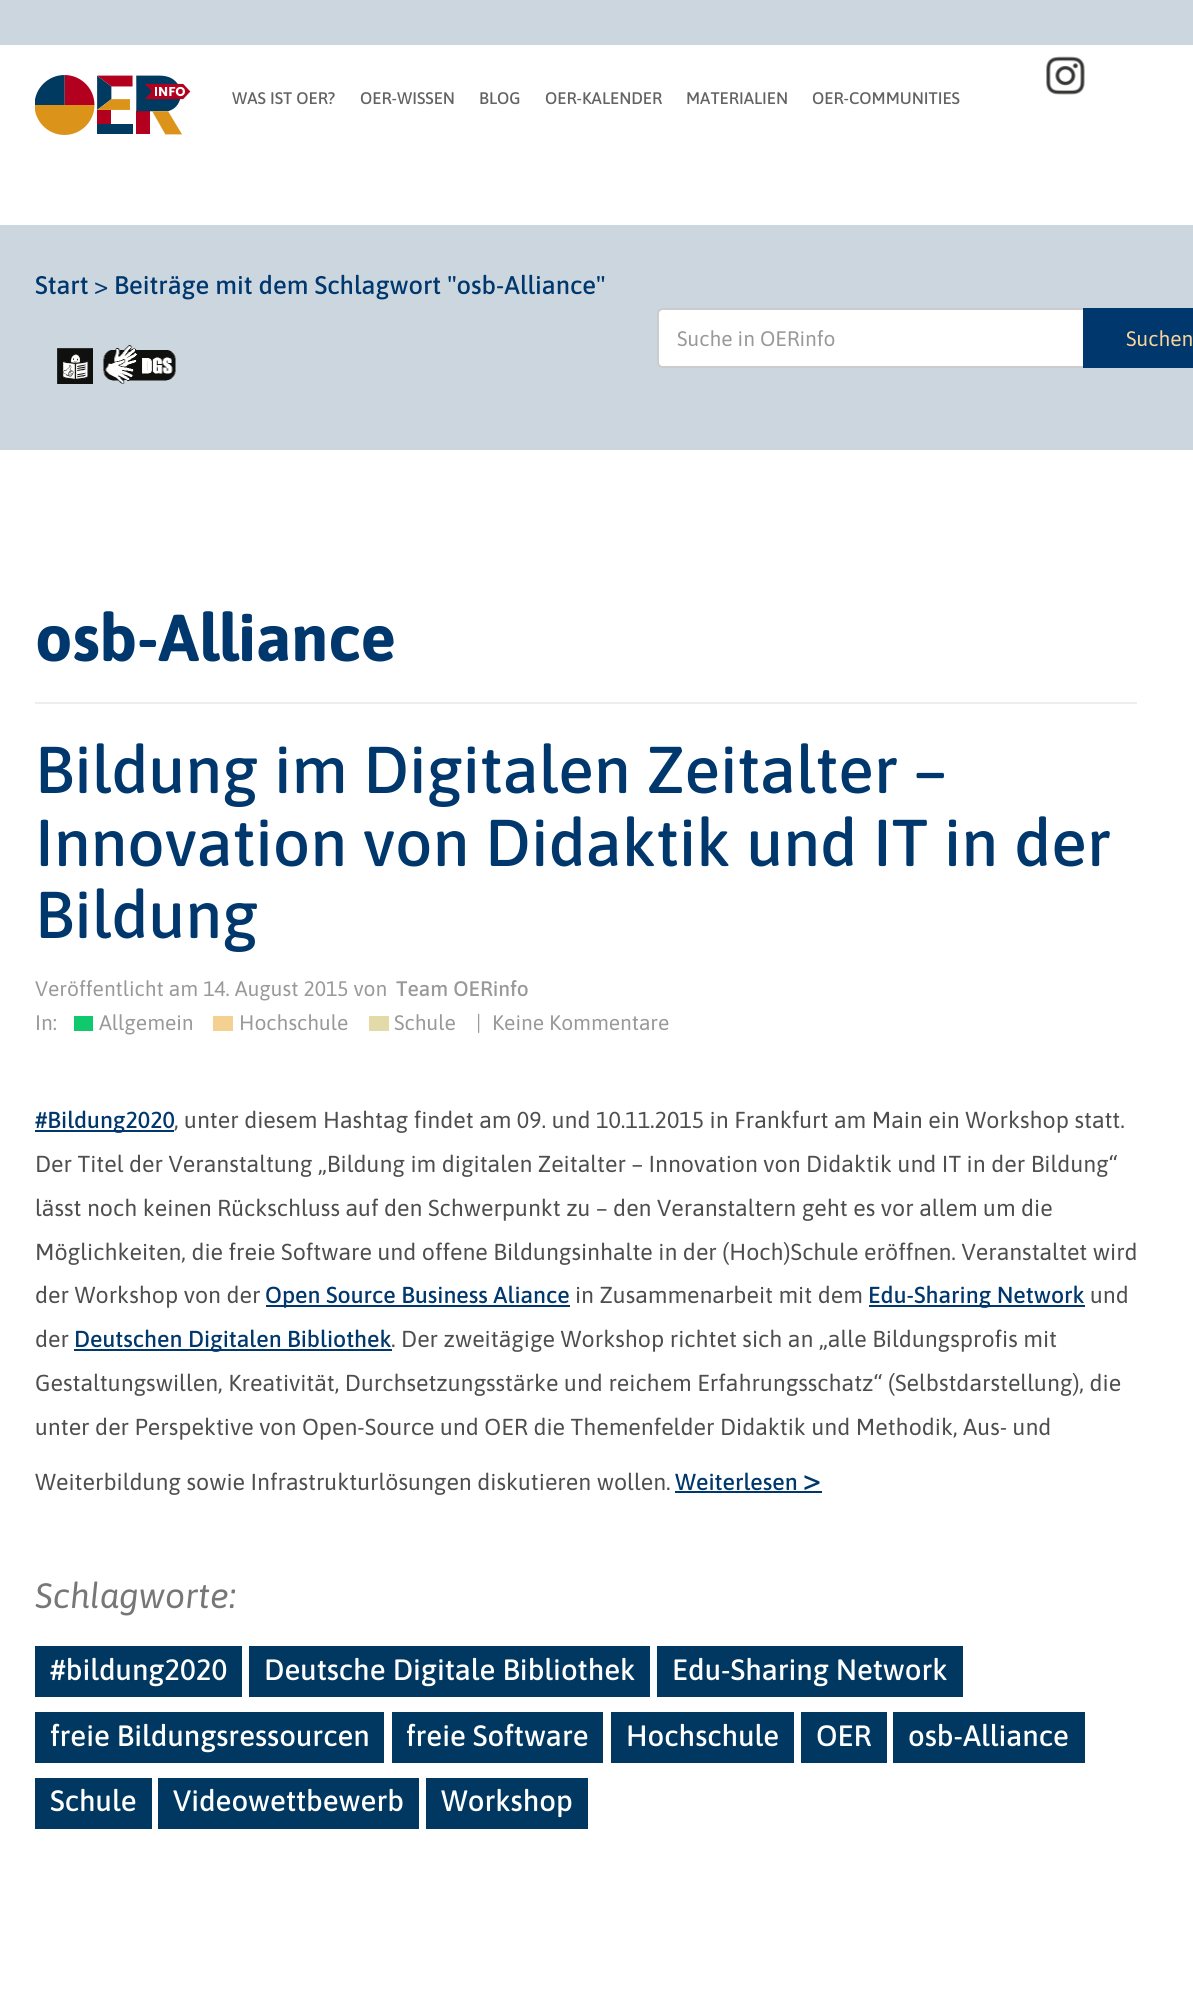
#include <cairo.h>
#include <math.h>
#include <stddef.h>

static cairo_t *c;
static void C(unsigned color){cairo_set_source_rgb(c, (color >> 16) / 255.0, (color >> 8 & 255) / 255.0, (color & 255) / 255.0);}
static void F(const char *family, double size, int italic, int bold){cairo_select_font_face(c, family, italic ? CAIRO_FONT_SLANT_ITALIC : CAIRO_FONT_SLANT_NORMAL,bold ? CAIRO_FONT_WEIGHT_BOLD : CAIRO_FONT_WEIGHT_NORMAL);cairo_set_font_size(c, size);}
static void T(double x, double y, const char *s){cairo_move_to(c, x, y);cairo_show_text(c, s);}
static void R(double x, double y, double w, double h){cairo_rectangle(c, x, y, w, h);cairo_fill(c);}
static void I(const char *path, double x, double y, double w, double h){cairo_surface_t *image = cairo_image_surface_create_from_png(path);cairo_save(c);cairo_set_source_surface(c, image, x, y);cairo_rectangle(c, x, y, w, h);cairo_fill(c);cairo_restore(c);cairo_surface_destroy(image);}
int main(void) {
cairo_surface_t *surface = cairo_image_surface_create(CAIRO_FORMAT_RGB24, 1193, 1999);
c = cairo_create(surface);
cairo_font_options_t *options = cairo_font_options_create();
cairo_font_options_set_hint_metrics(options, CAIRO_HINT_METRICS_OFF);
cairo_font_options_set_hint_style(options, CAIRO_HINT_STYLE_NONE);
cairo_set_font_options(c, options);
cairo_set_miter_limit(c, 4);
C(0xffffff);
cairo_paint(c);
C(0xccd6df);
R(0,0,1193,450);
C(0xffffff);
R(0,45,1193,180);
I("1.png",35,75,156,60);
I("2.png",1046,56,39,39);
F("Asap Medium",16.75,0,0);
C(0x646263);
T(232,104,"WAS IST OER?");
T(360,104,"OER-WISSEN");
T(479,104,"BLOG");
T(545,104,"OER-KALENDER");
T(686,104,"MATERIALIEN");
T(812,104,"OER-COMMUNITIES");
F("Asap Medium",25.5,0,0);
C(0x00376d);
T(35,294,"Start");
F("Asap",25.5,0,0);
T(94,294,">");
F("Asap Medium",25.5,0,0);
T(114,294,"Beiträge mit dem Schlagwort \"osb-Alliance\"");
C(0xffffff);
cairo_new_path(c);
cairo_move_to(c,663,309);
cairo_line_to(c,1084,309);
cairo_line_to(c,1084,367);
cairo_line_to(c,663,367);
cairo_curve_to(c,660,367,658,365,658,362);
cairo_line_to(c,658,314);
cairo_curve_to(c,658,311,660,309,663,309);
cairo_close_path(c);
cairo_fill_preserve(c);
C(0xcccccc);
cairo_stroke(c);
F("Asap",21,0,0);
C(0x999999);
T(677,346,"Suche in OERinfo");
C(0x00376d);
R(1083,308,110,60);
C(0xfbd499);
T(1126,346,"Suchen");
I("3.png",57,348,36,36);
I("4.png",103,345,73,39);
C(0xeeeeee);
R(35,702,1102,2);
F("Asap",66,0,1);
C(0x00376d);
T(35,661,"osb-Alliance");
F("Asap Medium",66,0,0);
T(35,793,"Bildung im Digitalen Zeitalter –");
T(35,866,"Innovation von Didaktik und IT in der");
T(35,938,"Bildung");
F("Asap",21,0,0);
C(0x999999);
T(35,996,"Veröffentlicht am 14. August 2015 von");
F("Asap Medium",21,0,0);
T(396,996,"Team OERinfo");
F("Asap",21,0,0);
T(35,1030,"In:");
C(0x0fc96c);
R(74,1016,19,15);
C(0x999999);
T(99,1030,"Allgemein");
C(0xf4d191);
R(213,1016,20,15);
C(0x999999);
T(239,1030,"Hochschule");
C(0xe3daaa);
R(369,1016,20,15);
C(0x999999);
T(394,1030,"Schule");
T(476,1030,"|");
T(492,1030,"Keine Kommentare");
C(0x00376d);
R(35,1130,139,2);
F("Asap Medium",23.1,0,0);
T(35,1128,"#Bildung2020");
F("Asap",23.1,0,0);
C(0x4e4e4e);
T(174,1128,", unter diesem Hashtag findet am 09. und 10.11.2015 in Frankfurt am Main ein Workshop statt.");
T(35,1172,"Der Titel der Veranstaltung „Bildung im digitalen Zeitalter – Innovation von Didaktik und IT in der Bildung“");
T(35,1216,"lässt noch keinen Rückschluss auf den Schwerpunkt zu – den Veranstaltern geht es vor allem um die");
T(35,1260,"Möglichkeiten, die freie Software und offene Bildungsinhalte in der (Hoch)Schule eröffnen. Veranstaltet wird");
T(35,1303,"der Workshop von der");
C(0x00376d);
R(266,1305,304,2);
F("Asap Medium",23.1,0,0);
T(265,1303,"Open Source Business Aliance");
F("Asap",23.1,0,0);
C(0x4e4e4e);
T(575,1303,"in Zusammenarbeit mit dem");
C(0x00376d);
R(869,1305,216,2);
F("Asap Medium",23.1,0,0);
T(868,1303,"Edu-Sharing Network");
F("Asap",23.1,0,0);
C(0x4e4e4e);
T(1090,1303,"und");
T(35,1347,"der");
C(0x00376d);
R(74,1349,318,2);
F("Asap Medium",23.1,0,0);
T(74,1347,"Deutschen Digitalen Bibliothek");
F("Asap",23.1,0,0);
C(0x4e4e4e);
T(391,1347,". Der zweitägige Workshop richtet sich an „alle Bildungsprofis mit");
T(35,1391,"Gestaltungswillen, Kreativität, Durchsetzungsstärke und reichem Erfahrungsschatz“ (Selbstdarstellung), die");
T(35,1435,"unter der Perspektive von Open-Source und OER die Themenfelder Didaktik und Methodik, Aus- und");
T(35,1490,"Weiterbildung sowie Infrastrukturlösungen diskutieren wollen.");
F("Asap Medium",23.1,0,0);
C(0x00376d);
T(675,1490,"Weiterlesen");
F("Asap Medium",32,0,0);
T(803,1490,">");
R(675,1491,147,2);
F("Asap",35.25,1,0);
C(0x777777);
T(35,1608,"Schlagworte:");
C(0x003861);
R(35,1646,207,51);
F("Asap Medium",29.4,0,0);
C(0xffffff);
T(50,1680,"#bildung2020");
C(0x003861);
R(249,1646,401,51);
C(0xffffff);
T(264,1680,"Deutsche Digitale Bibliothek");
C(0x003861);
R(657,1646,306,51);
C(0xffffff);
T(672,1680,"Edu-Sharing Network");
C(0x003861);
R(35,1712,349,51);
C(0xffffff);
T(50,1746,"freie Bildungsressourcen");
C(0x003861);
R(392,1712,211,51);
C(0xffffff);
T(406,1746,"freie Software");
C(0x003861);
R(611,1712,183,51);
C(0xffffff);
T(626,1746,"Hochschule");
C(0x003861);
R(801,1712,86,51);
C(0xffffff);
T(816,1746,"OER");
C(0x003861);
R(893,1712,192,51);
C(0xffffff);
T(908,1746,"osb-Alliance");
C(0x003861);
R(35,1778,117,51);
C(0xffffff);
T(50,1811,"Schule");
C(0x003861);
R(158,1778,261,51);
C(0xffffff);
T(173,1811,"Videowettbewerb");
C(0x003861);
R(426,1778,162,51);
C(0xffffff);
T(441,1811,"Workshop");
cairo_surface_write_to_png(surface, "o.png");
cairo_font_options_destroy(options);
cairo_destroy(c);
cairo_surface_destroy(surface);
return 0;
}
